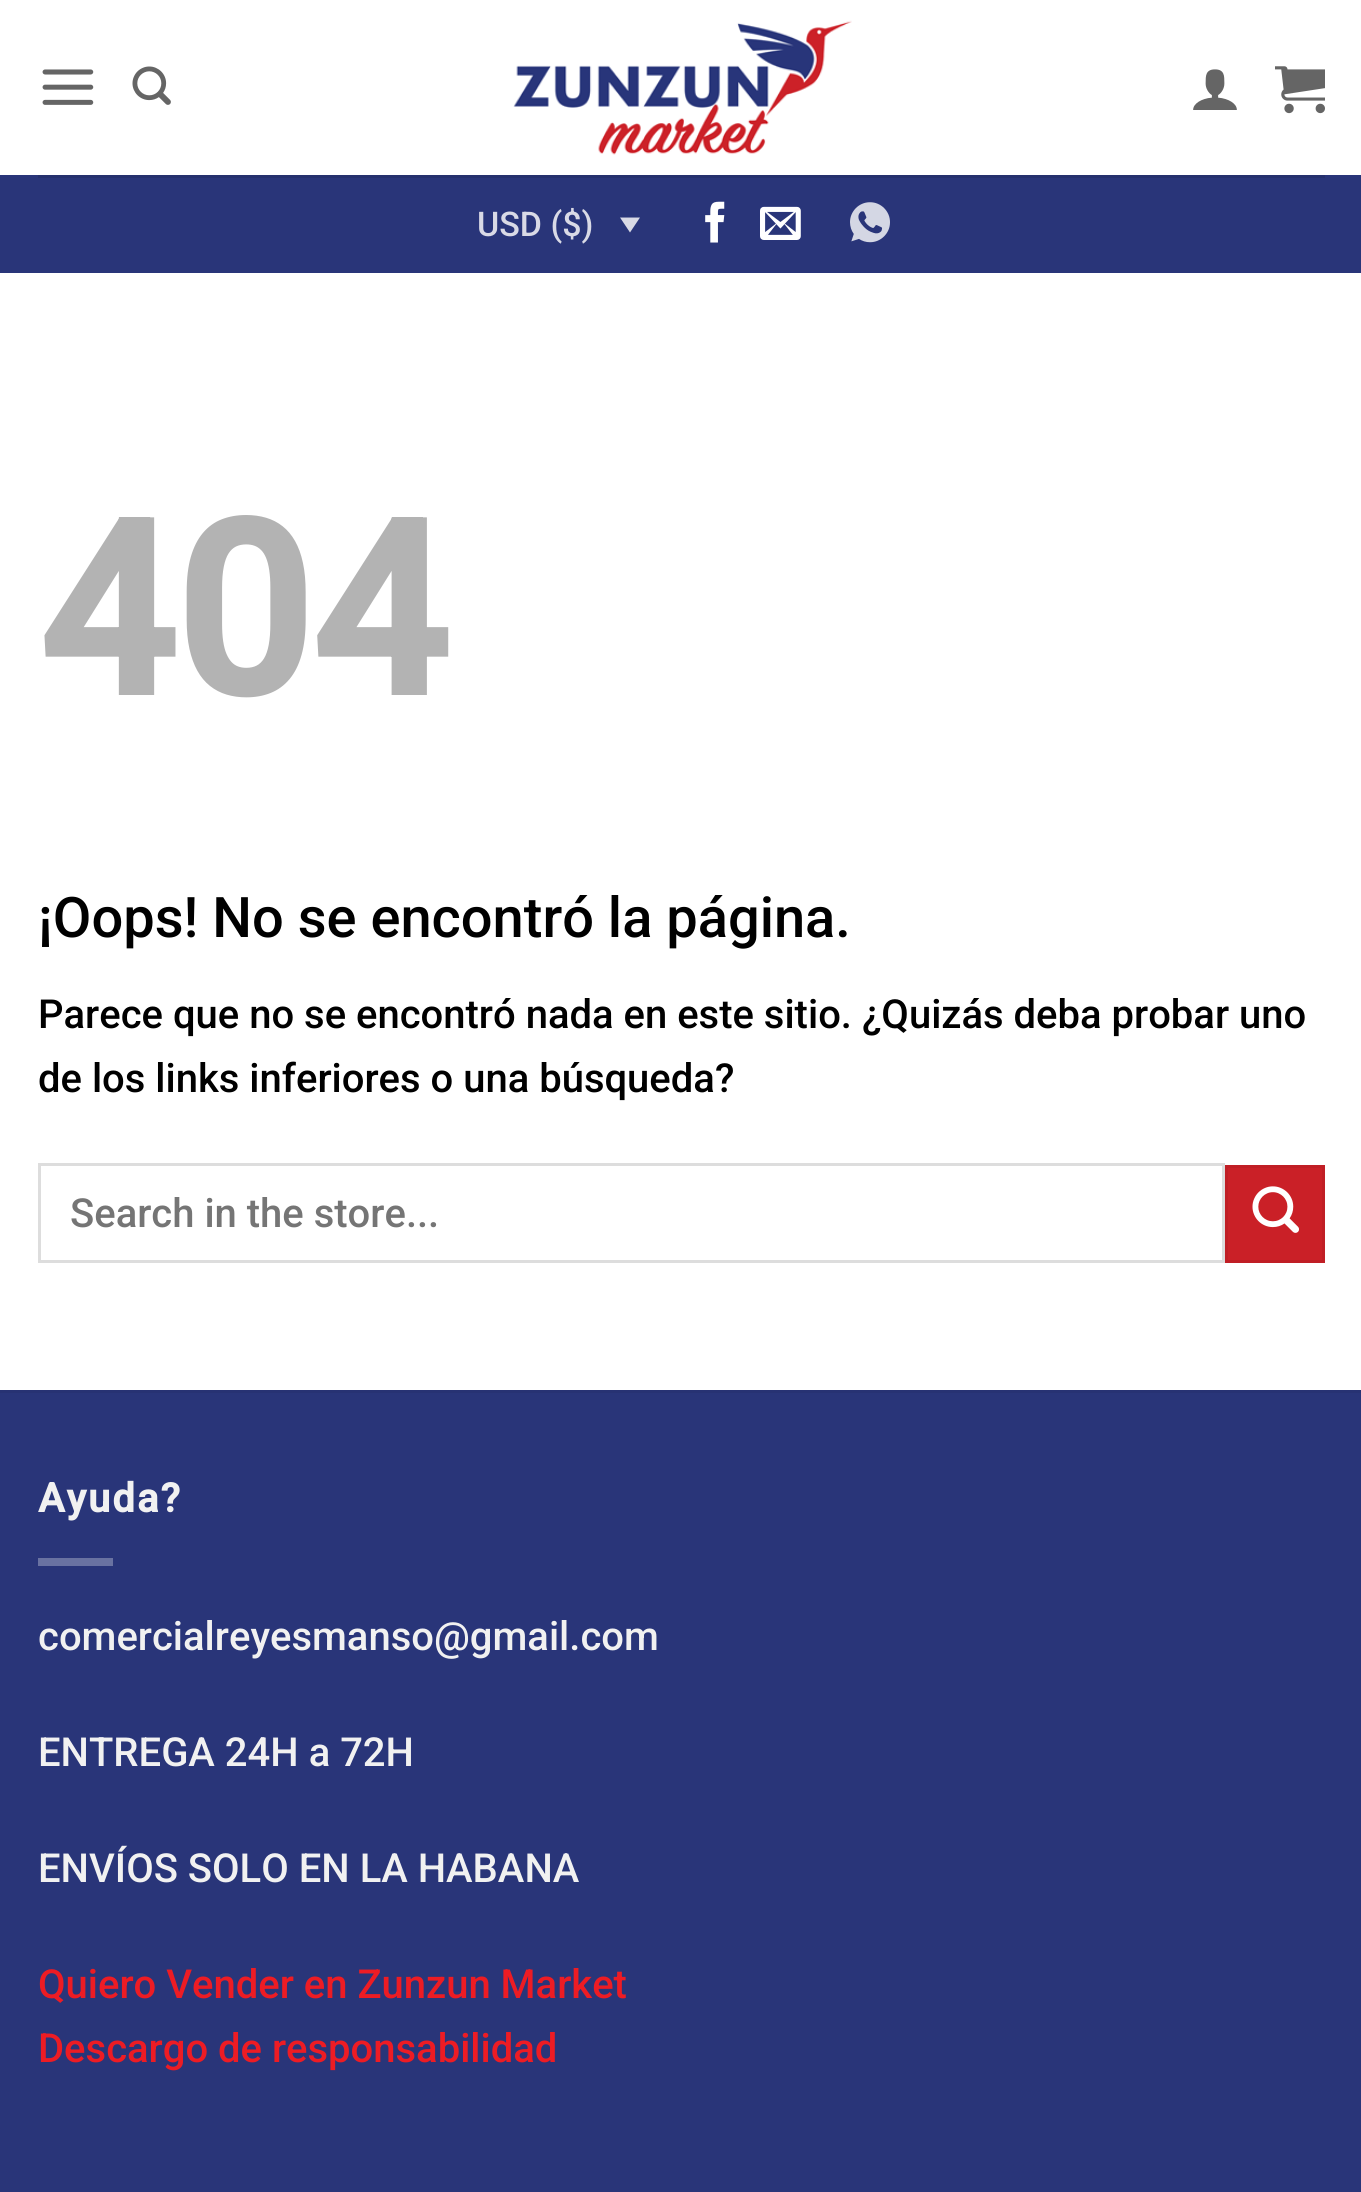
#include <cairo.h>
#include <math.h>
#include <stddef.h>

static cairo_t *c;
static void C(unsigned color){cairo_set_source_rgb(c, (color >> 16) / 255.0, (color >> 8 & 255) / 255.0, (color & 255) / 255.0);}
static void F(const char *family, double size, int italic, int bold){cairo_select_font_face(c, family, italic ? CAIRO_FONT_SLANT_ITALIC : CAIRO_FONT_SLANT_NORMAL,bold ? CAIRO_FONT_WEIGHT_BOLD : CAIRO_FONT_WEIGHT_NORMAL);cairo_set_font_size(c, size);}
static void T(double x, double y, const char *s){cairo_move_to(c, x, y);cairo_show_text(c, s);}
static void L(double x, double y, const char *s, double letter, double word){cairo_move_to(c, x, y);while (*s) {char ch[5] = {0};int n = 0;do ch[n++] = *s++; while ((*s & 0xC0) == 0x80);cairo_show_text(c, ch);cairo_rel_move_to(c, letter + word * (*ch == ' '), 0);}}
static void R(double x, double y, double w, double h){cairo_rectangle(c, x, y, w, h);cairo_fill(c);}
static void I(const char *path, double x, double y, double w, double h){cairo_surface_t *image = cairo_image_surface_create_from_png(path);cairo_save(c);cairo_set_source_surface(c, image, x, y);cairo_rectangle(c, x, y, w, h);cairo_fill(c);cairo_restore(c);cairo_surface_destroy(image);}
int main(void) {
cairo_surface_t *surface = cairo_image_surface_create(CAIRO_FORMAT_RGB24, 1361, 2192);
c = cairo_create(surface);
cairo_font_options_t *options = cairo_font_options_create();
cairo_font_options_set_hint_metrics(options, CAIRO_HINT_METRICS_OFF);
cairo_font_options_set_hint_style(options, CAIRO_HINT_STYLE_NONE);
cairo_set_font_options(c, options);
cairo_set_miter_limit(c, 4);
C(0xffffff);
cairo_paint(c);
I("1.png",42,69,52,36);
I("2.png",132,66,39,39);
I("3.png",513,20,339,135);
I("4.png",1193,69,44,41);
I("5.png",1275,66,50,48);
C(0x293579);
R(0,175,1361,98);
C(0x25306d);
R(38,175,1287,3);
F("Roboto Medium",34,0,0);
C(0xd9dae6);
T(477,236,"USD ($)");
cairo_new_path(c);
cairo_move_to(c,620,217.5);
cairo_line_to(c,640,217.5);
cairo_line_to(c,630,232.5);
cairo_close_path(c);
cairo_fill(c);
I("6.png",705,201,20,42);
I("7.png",760,206,41,34);
I("8.png",850,202,40,41);
F("Roboto",240,0,1);
C(0xb3b3b3);
T(38,695,"404");
F("Roboto Medium",56,0,0);
C(0x000000);
T(38,937,"¡Oops! No se encontró la página.");
F("Roboto Medium",40,0,0);
T(38,1028,"Parece que no se encontró nada en este sitio. ¿Quizás deba probar uno");
T(38,1092,"de los links inferiores o una búsqueda?");
cairo_rectangle(c,39.5,1164.5,1184,97);
C(0xdddddd);
cairo_set_line_width(c,3);
cairo_stroke(c);
C(0x757575);
T(70,1227,"Search in the store...");
C(0xca2027);
cairo_rectangle(c,1226.5,1166.5,97,95);
cairo_fill_preserve(c);
C(0xc01e25);
cairo_stroke(c);
I("9.png",1252,1186,47,47);
C(0x293579);
R(0,1393,1361,799);
C(0x273273);
R(0,1390,1361,3);
F("Roboto",40,0,1);
C(0xf1f1f1);
L(38,1512,"Ayuda?",2,0);
C(0x6972a1);
R(38,1558,75,8);
F("Roboto Medium",40,0,0);
C(0xf1f1f1);
T(38,1650,"comercialreyesmanso@gmail.com");
T(38,1766,"ENTREGA 24H a 72H");
T(38,1882,"ENVÍOS SOLO EN LA HABANA");
C(0xed1c24);
T(38,1998,"Quiero Vender en Zunzun Market");
T(38,2062,"Descargo de responsabilidad");
cairo_surface_write_to_png(surface, "o.png");
cairo_font_options_destroy(options);
cairo_destroy(c);
cairo_surface_destroy(surface);
return 0;
}
